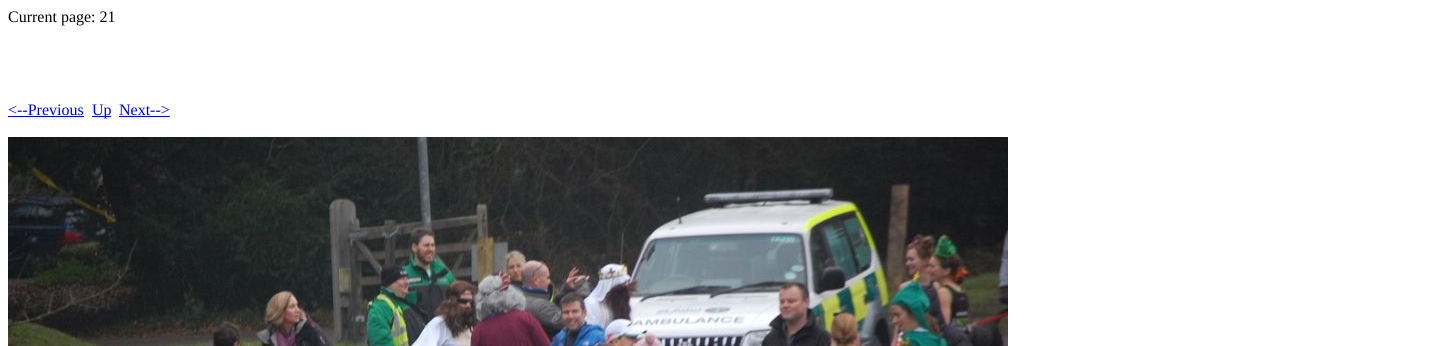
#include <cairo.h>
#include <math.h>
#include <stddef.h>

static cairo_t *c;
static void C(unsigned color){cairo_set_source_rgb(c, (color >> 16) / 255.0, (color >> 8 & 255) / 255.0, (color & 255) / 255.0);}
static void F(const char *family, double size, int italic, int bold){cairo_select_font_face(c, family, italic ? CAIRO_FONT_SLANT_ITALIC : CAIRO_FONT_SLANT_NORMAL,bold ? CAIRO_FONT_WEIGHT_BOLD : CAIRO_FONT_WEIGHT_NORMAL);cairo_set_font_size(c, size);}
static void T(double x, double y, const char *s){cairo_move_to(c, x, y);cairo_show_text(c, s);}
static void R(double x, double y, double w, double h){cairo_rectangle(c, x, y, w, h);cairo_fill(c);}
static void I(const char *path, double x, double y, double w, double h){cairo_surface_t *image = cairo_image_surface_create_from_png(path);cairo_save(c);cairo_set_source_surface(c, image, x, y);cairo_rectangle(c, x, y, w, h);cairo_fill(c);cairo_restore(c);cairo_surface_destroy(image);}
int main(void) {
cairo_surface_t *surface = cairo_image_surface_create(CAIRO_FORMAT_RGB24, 1431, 346);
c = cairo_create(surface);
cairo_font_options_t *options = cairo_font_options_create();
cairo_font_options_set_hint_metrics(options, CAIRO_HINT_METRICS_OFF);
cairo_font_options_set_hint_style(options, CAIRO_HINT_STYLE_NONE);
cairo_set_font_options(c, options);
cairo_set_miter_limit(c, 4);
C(0xffffff);
cairo_paint(c);
F("Liberation Serif",16,0,0);
C(0x000000);
T(8,22,"Current page: 21");
C(0x0000ee);
T(8,115,"<--Previous");
R(8,116,76,1);
R(92,116,19,1);
T(92,115,"Up");
T(119,115,"Next-->");
R(119,116,51,1);
I("1.png",8,137,1000,209);
cairo_surface_write_to_png(surface, "o.png");
cairo_font_options_destroy(options);
cairo_destroy(c);
cairo_surface_destroy(surface);
return 0;
}
